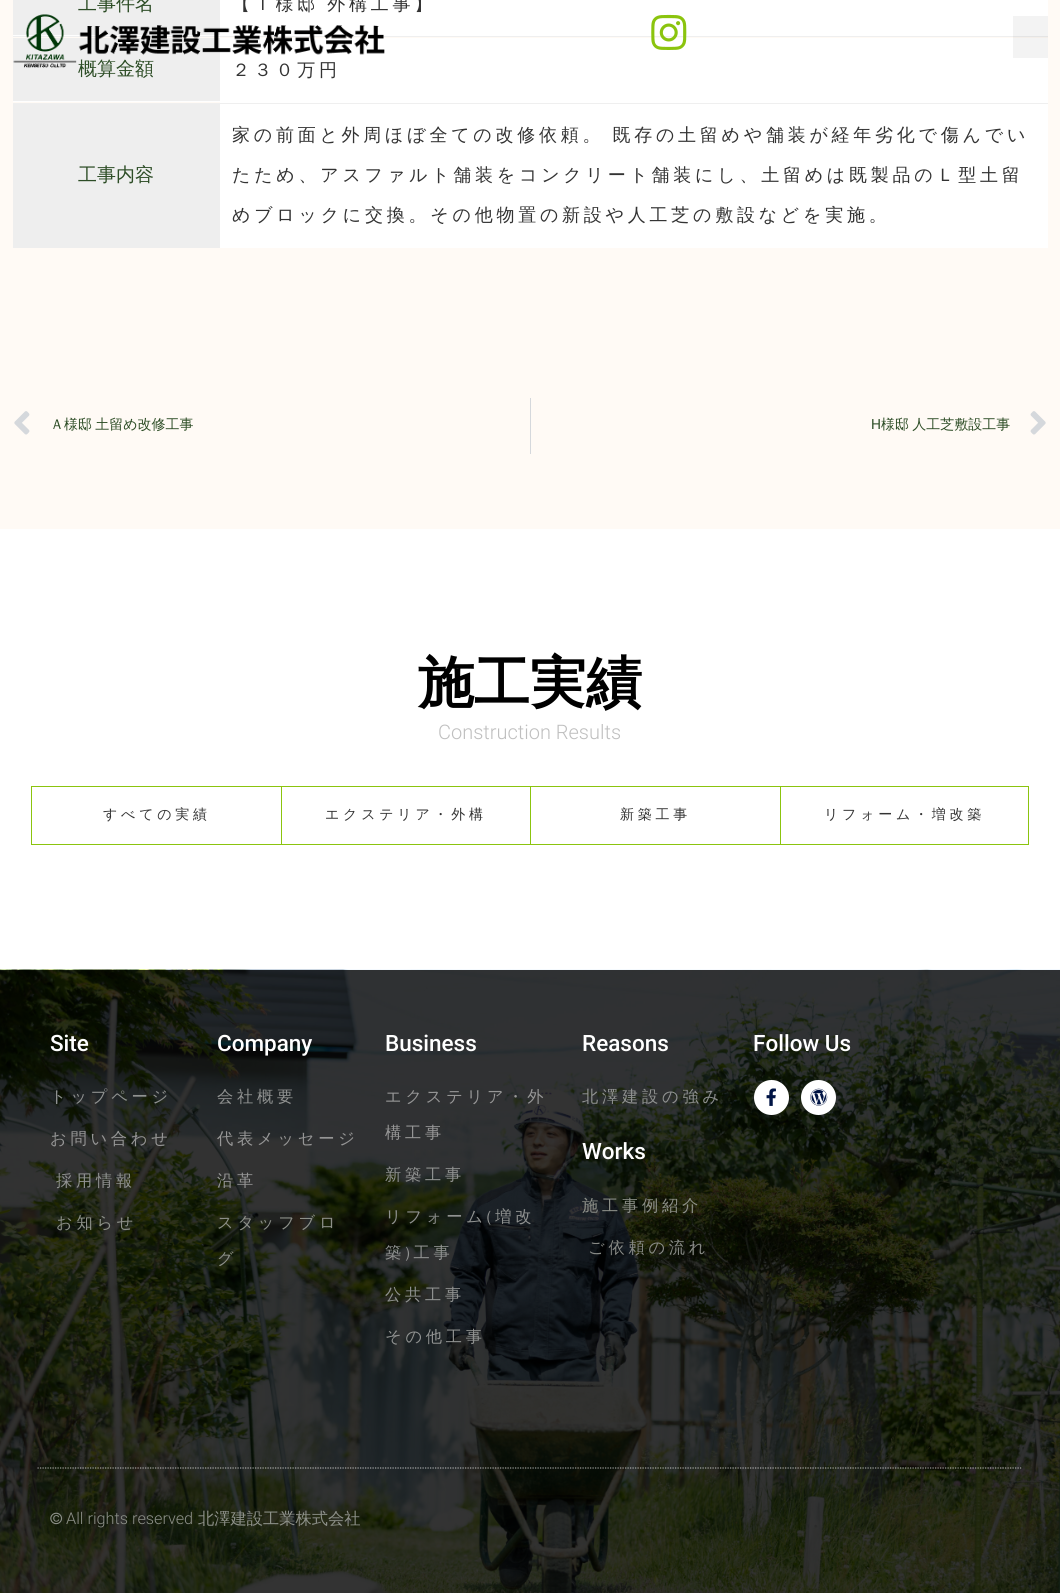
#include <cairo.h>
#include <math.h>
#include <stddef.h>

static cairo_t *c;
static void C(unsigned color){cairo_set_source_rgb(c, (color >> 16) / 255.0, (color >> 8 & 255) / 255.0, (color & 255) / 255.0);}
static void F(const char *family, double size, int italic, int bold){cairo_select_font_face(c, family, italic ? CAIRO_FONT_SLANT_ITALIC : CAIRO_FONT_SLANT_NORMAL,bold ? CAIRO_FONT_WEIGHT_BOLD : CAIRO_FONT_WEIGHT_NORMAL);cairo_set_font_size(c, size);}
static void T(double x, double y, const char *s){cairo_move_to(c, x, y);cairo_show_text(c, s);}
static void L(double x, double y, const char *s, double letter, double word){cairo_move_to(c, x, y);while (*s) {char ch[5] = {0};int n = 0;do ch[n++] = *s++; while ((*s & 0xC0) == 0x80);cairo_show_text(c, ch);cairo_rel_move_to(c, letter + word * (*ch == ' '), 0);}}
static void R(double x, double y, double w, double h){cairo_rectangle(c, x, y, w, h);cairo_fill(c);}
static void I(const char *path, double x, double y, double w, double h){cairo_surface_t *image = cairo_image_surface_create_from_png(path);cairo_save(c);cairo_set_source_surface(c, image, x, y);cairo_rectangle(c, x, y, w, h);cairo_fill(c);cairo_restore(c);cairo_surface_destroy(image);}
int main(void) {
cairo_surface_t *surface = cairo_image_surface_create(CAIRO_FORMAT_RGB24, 1060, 1593);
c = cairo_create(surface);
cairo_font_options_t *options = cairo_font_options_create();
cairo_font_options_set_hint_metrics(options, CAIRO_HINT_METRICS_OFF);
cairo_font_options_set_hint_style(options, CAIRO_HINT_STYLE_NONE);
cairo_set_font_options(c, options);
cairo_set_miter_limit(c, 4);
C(0xfffaf5);
cairo_paint(c);
C(0xefefef);
R(13,36,1035,1);
C(0xeeeeee);
R(13,0,207,35);
C(0xfefefe);
R(13,35,207,1);
F("WenQuanYi Zen Hei Medium",19,0,0);
C(0x2d4d26);
T(78,10,"工事件名");
C(0xffffff);
R(220,0,828,36);
F("WenQuanYi Zen Hei Medium",18,0,0);
C(0x333333);
L(232,10,"【Ｉ様邸 外構工事】",3.75,-1);
C(0xefefef);
R(13,103,1035,1);
C(0xeeeeee);
R(13,38,207,63);
C(0xfefefe);
R(13,101,207,1);
F("WenQuanYi Zen Hei Medium",19,0,0);
C(0x2d4d26);
T(78,75,"概算金額");
C(0xffffff);
R(220,38,828,65);
F("WenQuanYi Zen Hei Medium",18,0,0);
C(0x333333);
L(232,76,"２３０万円",3.75,0);
C(0xeeeeee);
R(13,104,207,144);
F("WenQuanYi Zen Hei Medium",19,0,0);
C(0x2d4d26);
T(78,181,"工事内容");
C(0xffffff);
R(220,104,828,144);
F("WenQuanYi Zen Hei Medium",18,0,0);
C(0x333333);
L(232,141,"家の前面と外周ほぼ全ての改修依頼。 既存の土留めや舗装が経年劣化で傷んでい",3.75,-1);
L(232,181,"たため、アスファルト舗装をコンクリート舗装にし、土留めは既製品のＬ型土留",3.75,0);
L(232,221,"めブロックに交換。その他物置の新設や人工芝の敷設などを実施。",3.75,0);
I("1.png",14,411,16,24);
F("WenQuanYi Zen Hei Medium",14,0,0);
C(0x2d4d26);
L(50,429,"Ａ様邸 土留め改修工事",0,-1);
C(0xd5d8dc);
R(530,398,1,56);
F("Roboto",14,0,0);
C(0x2d4d26);
T(871,429,"H");
F("WenQuanYi Zen Hei Medium",14,0,0);
L(881,429,"様邸 人工芝敷設工事",0,-1);
I("2.png",1030,411,16,24);
C(0xffffff);
R(0,529,1060,441);
F("WenQuanYi Zen Hei",56,0,1);
C(0x000000);
T(418,702,"施工実績");
F("Roboto Light",20,0,0);
C(0xbfbfbf);
T(438,739,"Construction Results");
C(0x8bc40e);
R(31,786,749,1);
R(31,844,749,1);
R(31,786,1,59);
F("WenQuanYi Zen Hei Medium",14,0,0);
C(0x333333);
L(103,819,"すべての実績",3.75,0);
C(0x8bc40e);
R(281,786,1,59);
C(0x333333);
L(325,819,"エクステリア・外構",3.75,0);
C(0x8bc40e);
R(530,786,1,59);
C(0x333333);
L(620,819,"新築工事",3.75,0);
cairo_rectangle(c,780.5,786.5,248,58);
C(0x8bc40e);
cairo_set_line_width(c,1);
cairo_stroke(c);
C(0x333333);
L(824,819,"リフォーム・増改築",3.75,0);
I("3.png",13,14,372,54);
I("4.png",651,14,36,36);
cairo_set_source_rgba(c,0,0,0,0.05);
R(1013,16,35,42);
I("5.png",0,969,1060,624);
F("Roboto Medium",22.5,0,0);
C(0xffffff);
T(50,1051,"Site");
F("WenQuanYi Zen Hei Medium",16.25,0,0);
C(0x909291);
L(50,1102,"トップページ",3.75,0);
C(0x969696);
L(50,1144,"お問い合わせ",3.75,0);
C(0x909291);
L(56,1186,"採用情報",3.75,0);
C(0x8d9089);
L(56,1228,"お知らせ",3.75,0);
F("Roboto Medium",22.5,0,0);
C(0xffffff);
T(217,1051,"Company");
F("WenQuanYi Zen Hei Medium",16.25,0,0);
C(0x909291);
L(217,1102,"会社概要",3.75,0);
C(0x969696);
L(217,1144,"代表メッセージ",3.75,0);
L(217,1186,"沿革",3.75,0);
C(0x8d9089);
L(217,1228,"スタッフブロ",3.75,0);
L(217,1264,"グ",3.75,0);
F("Roboto Medium",22.5,0,0);
C(0xffffff);
T(385,1051,"Business");
F("WenQuanYi Zen Hei Medium",16.25,0,0);
C(0x969696);
L(385,1102,"エクステリア・外",3.75,0);
L(385,1138,"構工事",3.75,0);
C(0x909291);
L(385,1180,"新築工事",3.75,0);
L(385,1222,"リフォーム(増改",3.75,0);
L(385,1258,"築)工事",3.75,0);
L(385,1300,"公共工事",3.75,0);
L(385,1342,"その他工事",3.75,0);
F("Roboto Medium",22.5,0,0);
C(0xffffff);
T(582,1051,"Reasons");
F("WenQuanYi Zen Hei Medium",16.25,0,0);
C(0x909291);
L(582,1102,"北澤建設の強み",3.75,0);
F("Roboto Medium",22.5,0,0);
C(0xffffff);
T(582,1159,"Works");
F("WenQuanYi Zen Hei Medium",16.25,0,0);
C(0x8d9089);
L(582,1211,"施工事例紹介",3.75,0);
C(0x888a86);
L(588,1253,"ご依頼の流れ",3.75,0);
F("Roboto Medium",22.5,0,0);
C(0xffffff);
T(753,1051,"Follow Us");
cairo_new_path(c);
cairo_arc(c,771.5,1097.5,17.5,0,2 * M_PI);
cairo_fill(c);
I("6.png",766,1088,10,18);
cairo_arc(c,818.5,1097.5,17.5,0,2 * M_PI);
cairo_fill(c);
I("7.png",810,1088,18,18);
cairo_new_path(c);
cairo_move_to(c,37.5,1468);
cairo_line_to(c,1022.5,1468);
cairo_set_source_rgba(c,1,1,1,0.59);
cairo_set_line_width(c,1.2);
cairo_set_dash(c,(double[]){1.25,1.25},2,0);
cairo_stroke(c);
F("WenQuanYi Zen Hei Medium",16.25,0,0);
C(0x8d9089);
T(50,1524,"©");
F("Roboto Light",16.25,0,0);
T(66,1524,"All rights reserved");
F("WenQuanYi Zen Hei Medium",16.25,0,0);
T(198,1524,"北澤建設工業株式会社");
cairo_surface_write_to_png(surface, "o.png");
cairo_font_options_destroy(options);
cairo_destroy(c);
cairo_surface_destroy(surface);
return 0;
}
